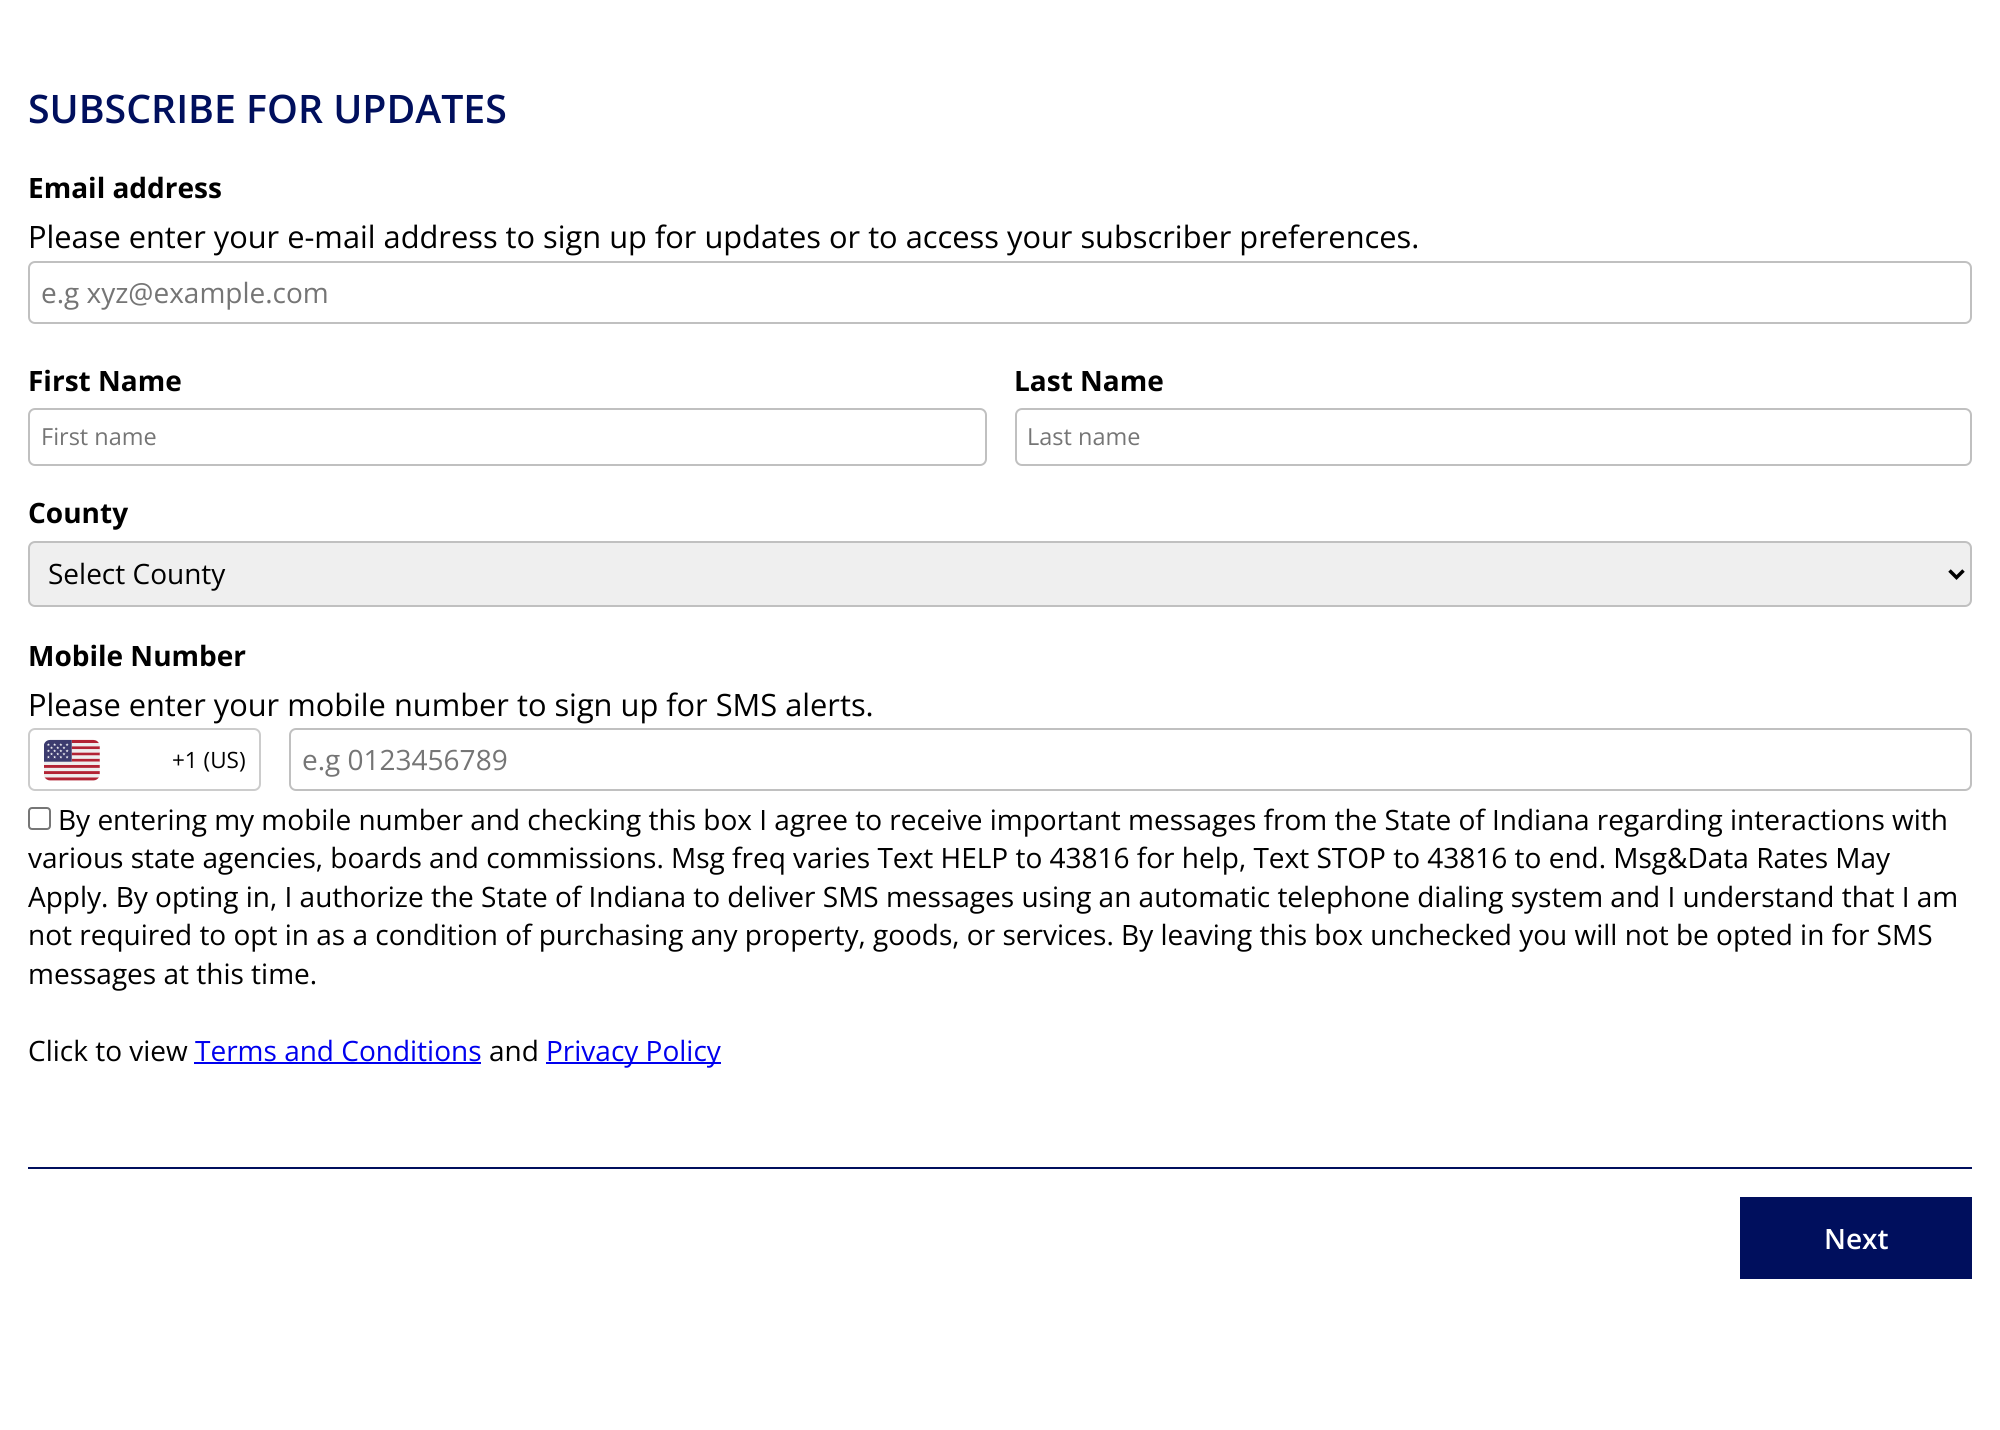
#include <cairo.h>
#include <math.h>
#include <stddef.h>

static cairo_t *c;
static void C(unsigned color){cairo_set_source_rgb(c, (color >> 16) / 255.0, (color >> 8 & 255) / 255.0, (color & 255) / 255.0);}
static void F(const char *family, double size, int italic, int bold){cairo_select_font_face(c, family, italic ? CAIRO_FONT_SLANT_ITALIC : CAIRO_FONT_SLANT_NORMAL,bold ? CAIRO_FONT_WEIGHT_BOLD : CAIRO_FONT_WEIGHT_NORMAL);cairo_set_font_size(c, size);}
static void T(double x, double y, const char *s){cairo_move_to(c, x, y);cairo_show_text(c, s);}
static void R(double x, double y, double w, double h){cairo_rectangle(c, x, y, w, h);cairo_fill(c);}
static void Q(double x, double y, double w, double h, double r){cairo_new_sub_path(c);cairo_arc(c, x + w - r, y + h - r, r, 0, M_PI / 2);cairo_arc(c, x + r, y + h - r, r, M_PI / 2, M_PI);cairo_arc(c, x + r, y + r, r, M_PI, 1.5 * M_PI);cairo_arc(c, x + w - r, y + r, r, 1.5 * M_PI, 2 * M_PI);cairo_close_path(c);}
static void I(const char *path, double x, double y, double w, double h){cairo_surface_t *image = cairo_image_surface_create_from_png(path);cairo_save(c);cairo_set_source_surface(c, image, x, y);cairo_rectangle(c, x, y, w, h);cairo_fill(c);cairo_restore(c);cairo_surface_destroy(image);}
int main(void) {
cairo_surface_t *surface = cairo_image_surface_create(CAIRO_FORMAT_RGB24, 2000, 1430);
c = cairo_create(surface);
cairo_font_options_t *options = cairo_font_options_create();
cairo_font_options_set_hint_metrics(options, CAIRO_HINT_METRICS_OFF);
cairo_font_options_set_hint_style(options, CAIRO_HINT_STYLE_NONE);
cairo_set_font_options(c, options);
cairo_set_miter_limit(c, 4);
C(0xffffff);
cairo_paint(c);
C(0x000f5d);
R(28,1167,1944,2);
F("Open Sans SemiBold",39.25,0,0);
T(28,123,"SUBSCRIBE FOR UPDATES");
F("Open Sans",28,0,1);
C(0x000000);
T(28,198,"Email address");
F("Open Sans",30.8,0,0);
T(28,248,"Please enter your e-mail address to sign up for updates or to access");
T(1007,248,"your subscriber preferences.");
Q(29,262,1942,61,6);
C(0xc0c0c0);
cairo_stroke(c);
F("Open Sans",28,0,0);
C(0x757575);
T(41,303,"e.g xyz@example.com");
F("Open Sans",28,0,1);
C(0x000000);
T(28,391,"First Name");
Q(29,409,957,56,6);
C(0xc0c0c0);
cairo_stroke(c);
F("Open Sans",23.5,0,0);
C(0x757575);
T(41,445,"First name");
F("Open Sans",28,0,1);
C(0x000000);
T(1014,391,"Last Name");
Q(1016,409,955,56,6);
C(0xc0c0c0);
cairo_stroke(c);
F("Open Sans",23.5,0,0);
C(0x757575);
T(1027,445,"Last name");
F("Open Sans",28,0,1);
C(0x000000);
T(28,523,"County");
C(0xefefef);
Q(29,542,1942,64,6);
cairo_fill_preserve(c);
C(0xc0c0c0);
cairo_stroke(c);
cairo_new_path(c);
cairo_move_to(c,1949.5,570.5);
cairo_line_to(c,1956.5,577.5);
cairo_line_to(c,1963.5,570.5);
C(0x000000);
cairo_set_line_width(c,3.5);
cairo_stroke(c);
F("Open Sans",28,0,0);
T(48,584,"Select County");
F("Open Sans",28,0,1);
T(28,666,"Mobile Number");
F("Open Sans",30.8,0,0);
T(28,716,"Please enter your mobile number to sign up for SMS alerts.");
Q(29,729,231,61,6);
C(0xcccccc);
cairo_set_line_width(c,2);
cairo_stroke(c);
I("1.png",44,739,56,42);
F("Open Sans",22.5,0,0);
C(0x000000);
T(172,768,"+1 (US)");
Q(290,729,1681,61,6);
C(0xc0c0c0);
cairo_stroke(c);
F("Open Sans",28,0,0);
C(0x757575);
T(302,770,"e.g 0123456789");
Q(29,808,21,21,3);
C(0x767676);
cairo_stroke(c);
C(0x000000);
T(58,830,"By entering my mobile number and checking this box I agree to receive important messages from the State of Indiana regarding interactions with");
T(28,868,"various state agencies, boards and commissions. Msg freq varies Text HELP to 43816 for help, Text STOP to 43816 to end. Msg&Data Rates May");
T(28,907,"Apply. By opting in, I authorize the State of Indiana to deliver SMS messages using an automatic telephone dialing system and I understand that I am");
T(28,945,"not required to opt in as a condition of purchasing any property, goods, or services. By leaving this box unchecked you will not be opted in for SMS");
T(28,984,"messages at this time.");
T(28,1061,"Click to view");
C(0x0000ee);
T(195,1061,"Terms and Conditions");
R(194,1062,287,2);
C(0x000000);
T(489,1061,"and");
C(0x0000ee);
R(546,1062,175,2);
T(546,1061,"Privacy Policy");
C(0x000f5d);
R(1740,1197,232,82);
F("Open Sans SemiBold",28,0,0);
C(0xffffff);
T(1824,1249,"Next");
cairo_surface_write_to_png(surface, "o.png");
cairo_font_options_destroy(options);
cairo_destroy(c);
cairo_surface_destroy(surface);
return 0;
}
